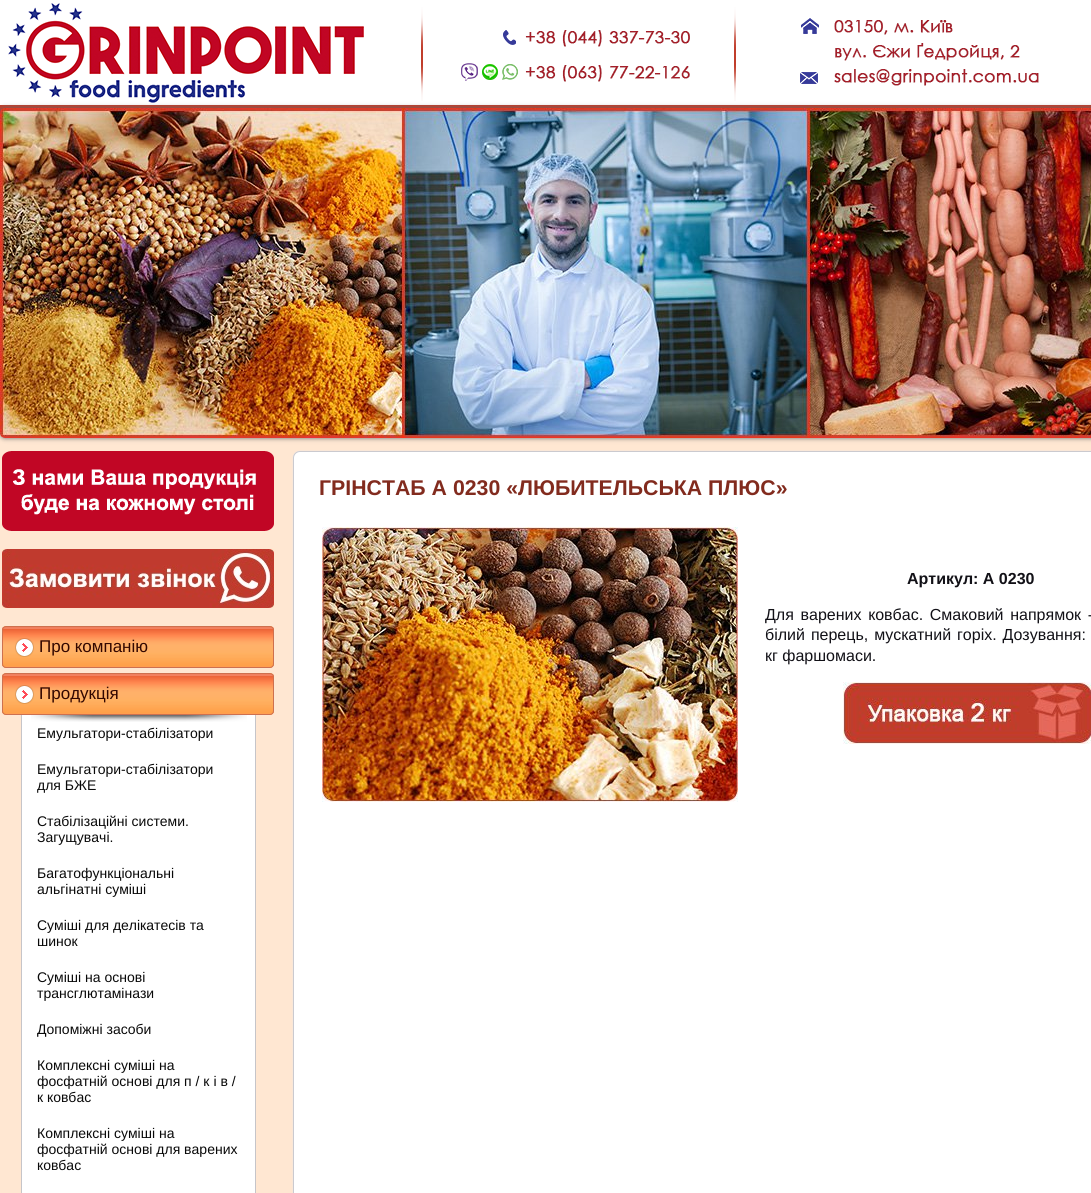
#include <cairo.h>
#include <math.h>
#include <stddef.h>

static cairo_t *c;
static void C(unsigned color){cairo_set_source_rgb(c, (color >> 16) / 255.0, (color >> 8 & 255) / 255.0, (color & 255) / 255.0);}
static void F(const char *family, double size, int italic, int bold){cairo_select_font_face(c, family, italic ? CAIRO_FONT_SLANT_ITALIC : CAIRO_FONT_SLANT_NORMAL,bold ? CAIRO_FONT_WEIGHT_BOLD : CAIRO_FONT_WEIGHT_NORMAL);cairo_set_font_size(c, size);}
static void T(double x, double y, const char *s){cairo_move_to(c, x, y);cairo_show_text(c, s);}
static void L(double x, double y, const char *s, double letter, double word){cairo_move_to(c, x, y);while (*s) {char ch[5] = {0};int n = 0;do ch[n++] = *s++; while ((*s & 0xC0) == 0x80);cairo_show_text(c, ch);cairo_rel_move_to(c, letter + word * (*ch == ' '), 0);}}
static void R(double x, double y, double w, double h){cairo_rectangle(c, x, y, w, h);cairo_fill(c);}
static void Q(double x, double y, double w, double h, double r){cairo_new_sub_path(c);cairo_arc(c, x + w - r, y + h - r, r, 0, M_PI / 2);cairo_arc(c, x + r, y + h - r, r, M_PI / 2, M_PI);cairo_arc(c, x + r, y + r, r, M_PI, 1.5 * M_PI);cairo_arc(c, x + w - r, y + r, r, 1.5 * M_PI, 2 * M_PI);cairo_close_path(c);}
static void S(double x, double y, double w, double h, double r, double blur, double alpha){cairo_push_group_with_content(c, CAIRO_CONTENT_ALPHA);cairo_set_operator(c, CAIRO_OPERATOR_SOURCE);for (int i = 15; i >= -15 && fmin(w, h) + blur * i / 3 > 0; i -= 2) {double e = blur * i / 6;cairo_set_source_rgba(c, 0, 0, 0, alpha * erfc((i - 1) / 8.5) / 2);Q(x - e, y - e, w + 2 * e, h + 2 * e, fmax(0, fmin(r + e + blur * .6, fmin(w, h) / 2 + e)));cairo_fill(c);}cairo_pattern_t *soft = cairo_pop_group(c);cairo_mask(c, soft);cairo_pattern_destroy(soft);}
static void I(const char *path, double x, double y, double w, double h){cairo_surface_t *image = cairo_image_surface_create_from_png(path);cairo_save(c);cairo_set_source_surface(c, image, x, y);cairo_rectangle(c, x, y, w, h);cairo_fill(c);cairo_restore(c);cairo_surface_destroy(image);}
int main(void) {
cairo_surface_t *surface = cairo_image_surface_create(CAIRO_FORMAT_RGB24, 1091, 1193);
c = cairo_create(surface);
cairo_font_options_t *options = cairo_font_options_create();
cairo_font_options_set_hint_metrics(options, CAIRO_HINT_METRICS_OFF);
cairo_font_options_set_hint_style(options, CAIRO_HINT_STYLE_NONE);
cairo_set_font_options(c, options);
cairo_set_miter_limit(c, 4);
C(0xffe7d2);
cairo_paint(c);
I("1.png",0,105,1091,3);
I("2.png",0,0,1091,105);
I("3.png",0,108,5,5);
C(0x666666);
S(0,108,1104,330,5,2.5,1);
I("4.png",0,108,1091,330);
C(0xe7e6eb);
S(293,451,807,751,7,.5,1);
C(0xffffff);
Q(293.5,451.5,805,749,6.5);
cairo_fill_preserve(c);
C(0xcbcacf);
cairo_set_line_width(c,1);
cairo_stroke(c);
F("Liberation Sans",21.3,0,1);
C(0x822b1e);
T(319,495,"ГРІНСТАБ А 0230 «ЛЮБИТЕЛЬСЬКА ПЛЮС»");
I("5.png",322,527,416,275);
F("Liberation Sans",16,0,1);
C(0x121117);
T(907,584,"Артикул: А 0230");
F("Liberation Sans",16,0,0);
L(765,620,"Для варених ковбас. Смаковий напрямок -",0,2.25);
L(765,640,"білий перець, мускатний горіх. Дозування:",0,1.5);
T(765,661,"кг фаршомаси.");
I("6.png",843,682,248,62);
I("7.png",2,451,272,80);
I("8.png",2,549,272,59);
C(0xff9e4f);
Q(2,626,272,42,4);
cairo_fill(c);
I("9.png",2,627,272,39);
Q(2.5,626.5,271,41,3.5);
C(0xce704e);
cairo_stroke(c);
F("Liberation Sans",17,0,0);
C(0x330700);
T(39,652,"Про компанію");
C(0xff9e4f);
Q(2,673,272,42,4);
cairo_fill(c);
I("9.png",2,674,272,39);
Q(2.5,673.5,271,41,3.5);
C(0xce704e);
cairo_stroke(c);
C(0x330700);
T(39,699,"Продукція");
C(0xffffff);
R(22,715,233,478);
I("10.png",31,715,216,7);
C(0xc6c5c9);
R(255,715,1,468);
R(21,715,1,468);
F("Liberation Sans",14,0,0);
C(0x090909);
T(37,738,"Емульгатори-стабілізатори");
T(37,774,"Емульгатори-стабілізатори");
T(37,790,"для БЖЕ");
T(37,826,"Стабілізаційні системи.");
T(37,842,"Загущувачі.");
T(37,878,"Багатофункціональні");
T(37,894,"альгінатні суміші");
T(37,930,"Суміші для делікатесів та");
T(37,946,"шинок");
T(37,982,"Суміші на основі");
T(37,998,"трансглютамінази");
T(37,1034,"Допоміжні засоби");
T(37,1070,"Комплексні суміші на");
T(37,1086,"фосфатній основі для п / к і в /");
T(37,1102,"к ковбас");
T(37,1138,"Комплексні суміші на");
T(37,1154,"фосфатній основі для варених");
T(37,1170,"ковбас");
C(0xc6c5c9);
cairo_set_fill_rule(c,CAIRO_FILL_RULE_EVEN_ODD);
cairo_new_path(c);
cairo_move_to(c,21,1183);
cairo_line_to(c,256,1183);
cairo_line_to(c,256,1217);
cairo_curve_to(c,256,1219,255,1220,253,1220);
cairo_line_to(c,24,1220);
cairo_curve_to(c,22,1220,21,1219,21,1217);
cairo_close_path(c);
cairo_move_to(c,22,1183);
cairo_line_to(c,255,1183);
cairo_line_to(c,255,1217);
cairo_curve_to(c,255,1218,254,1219,253,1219);
cairo_line_to(c,24,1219);
cairo_curve_to(c,23,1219,22,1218,22,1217);
cairo_close_path(c);
cairo_fill(c);
cairo_surface_write_to_png(surface, "o.png");
cairo_font_options_destroy(options);
cairo_destroy(c);
cairo_surface_destroy(surface);
return 0;
}
